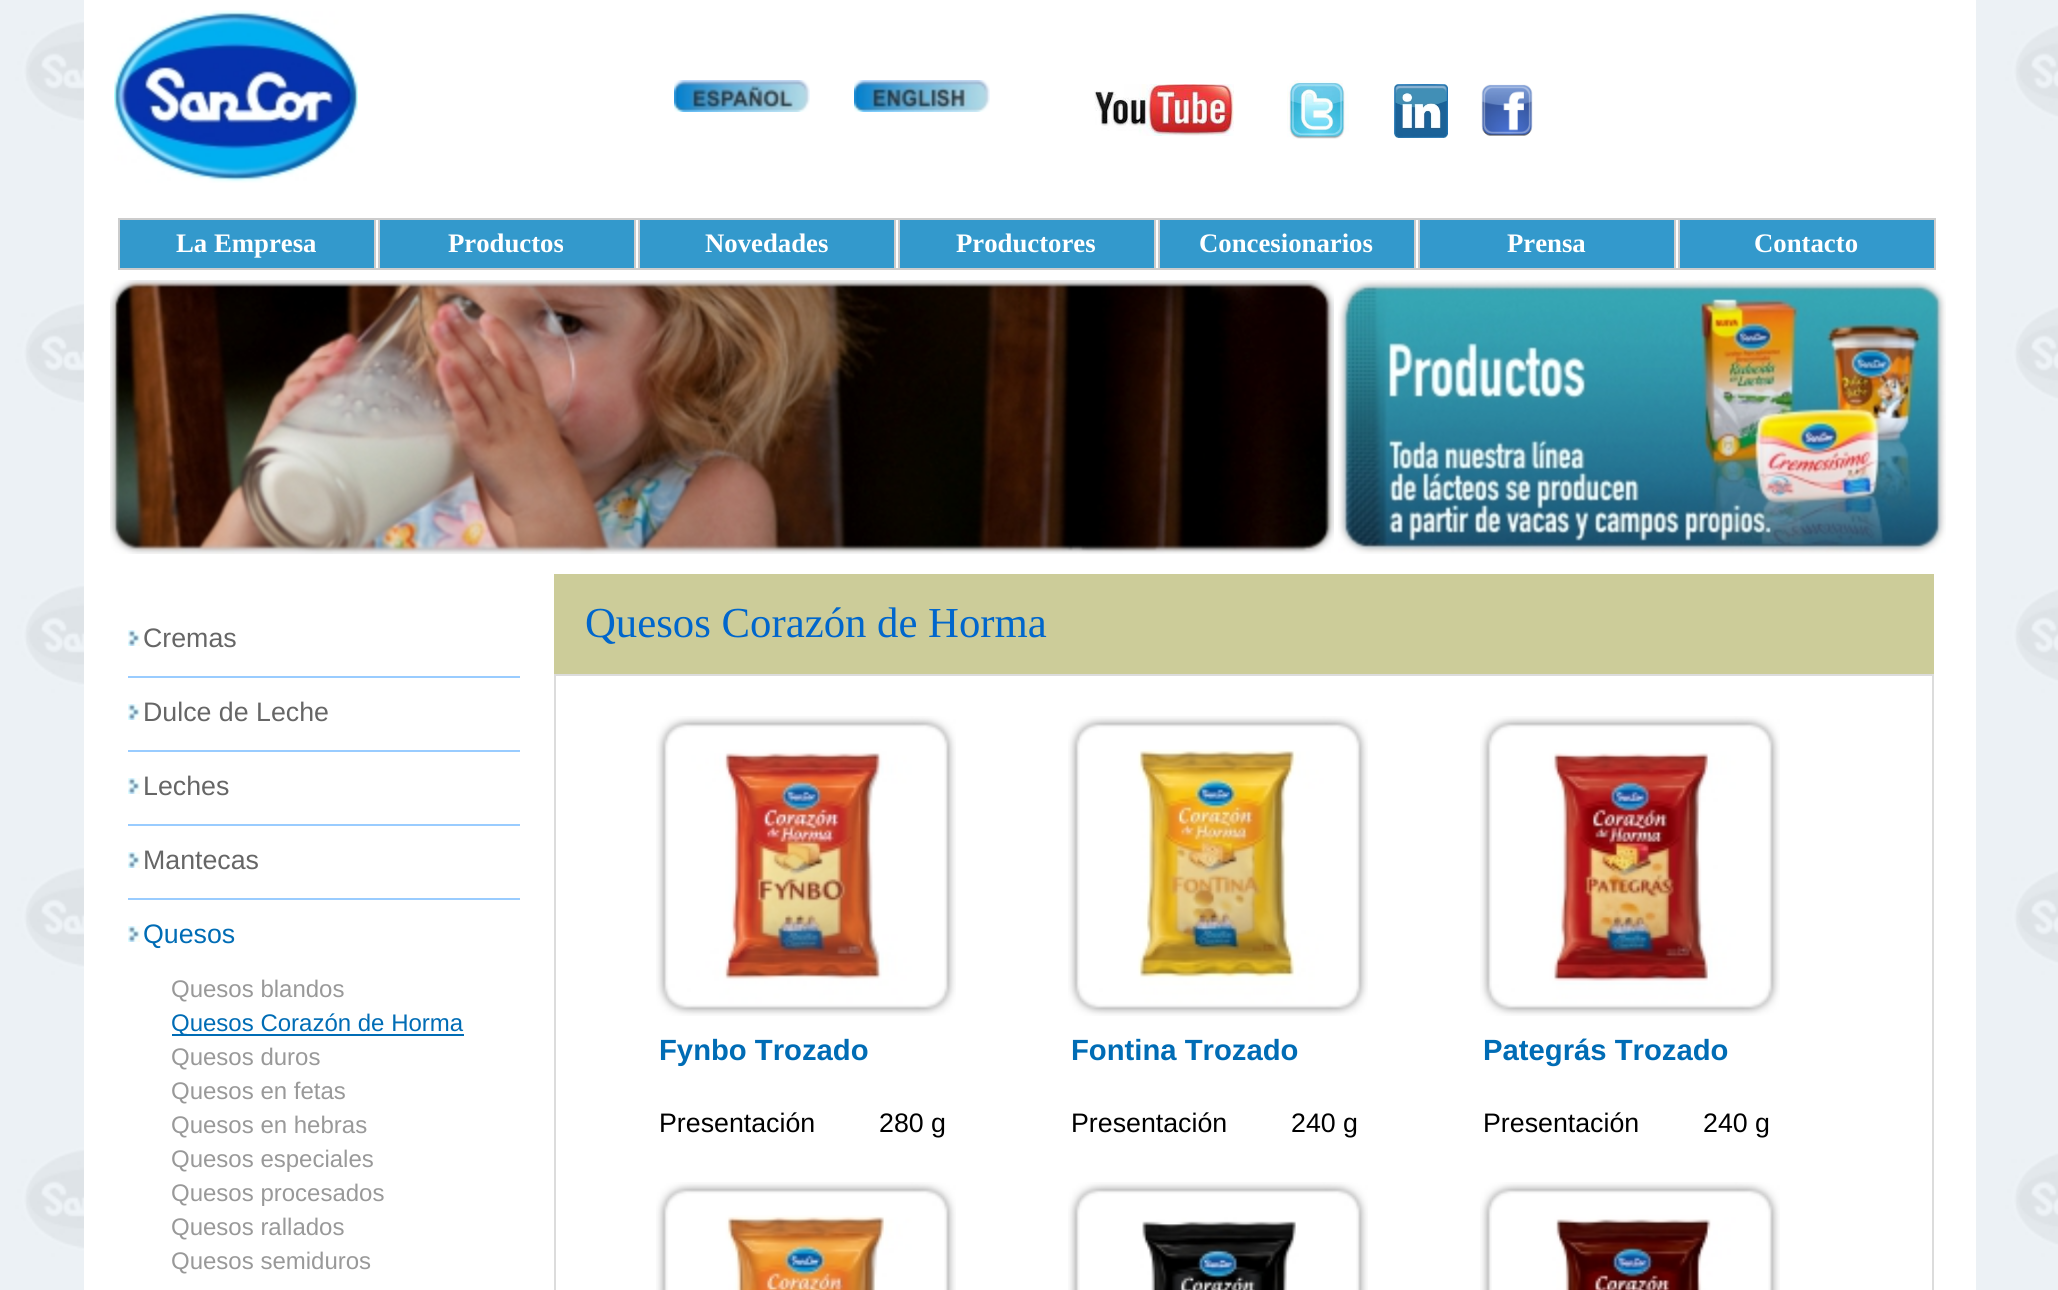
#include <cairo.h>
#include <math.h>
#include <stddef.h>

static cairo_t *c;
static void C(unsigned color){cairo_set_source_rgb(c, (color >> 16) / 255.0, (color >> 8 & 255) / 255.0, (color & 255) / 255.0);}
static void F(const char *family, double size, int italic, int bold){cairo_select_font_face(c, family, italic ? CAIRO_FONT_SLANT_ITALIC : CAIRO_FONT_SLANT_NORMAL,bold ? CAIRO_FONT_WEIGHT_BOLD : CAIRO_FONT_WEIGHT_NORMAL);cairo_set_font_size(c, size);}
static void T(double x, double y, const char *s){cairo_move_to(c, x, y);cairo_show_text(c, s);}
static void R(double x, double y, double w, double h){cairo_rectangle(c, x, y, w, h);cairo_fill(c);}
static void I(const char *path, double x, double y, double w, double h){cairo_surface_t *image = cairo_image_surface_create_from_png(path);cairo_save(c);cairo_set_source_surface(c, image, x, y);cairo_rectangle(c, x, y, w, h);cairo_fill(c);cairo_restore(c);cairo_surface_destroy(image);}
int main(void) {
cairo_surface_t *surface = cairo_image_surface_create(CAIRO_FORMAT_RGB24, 2058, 1290);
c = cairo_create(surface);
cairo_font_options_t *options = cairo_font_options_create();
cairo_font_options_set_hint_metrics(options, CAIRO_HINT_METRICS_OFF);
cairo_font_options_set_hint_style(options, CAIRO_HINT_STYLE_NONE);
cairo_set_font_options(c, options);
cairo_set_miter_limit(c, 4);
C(0xffffff);
cairo_paint(c);
I("1.png",0,0,2058,1290);
C(0xffffff);
R(84,0,1892,574);
I("2.png",114,10,244,173);
I("3.png",674,80,136,32);
I("4.png",854,80,136,32);
I("5.png",1094,84,140,52);
I("6.png",1287,80,62,59);
I("7.png",1394,84,54,54);
I("8.png",1481,84,52,52);
C(0xcccccc);
R(118,218,1818,2);
R(1934,218,2,52);
R(118,268,1818,2);
R(118,218,2,52);
C(0x3399cc);
R(120,220,254,48);
F("Liberation Serif",26.75,0,1);
C(0xffffff);
T(176,252,"La Empresa");
C(0xcccccc);
R(374,218,2,52);
C(0x3399cc);
R(380,220,254,48);
C(0xcccccc);
R(378,218,2,52);
C(0xffffff);
T(448,252,"Productos");
C(0xcccccc);
R(634,218,2,52);
C(0x3399cc);
R(640,220,254,48);
C(0xcccccc);
R(638,218,2,52);
C(0xffffff);
T(705,252,"Novedades");
C(0xcccccc);
R(894,218,2,52);
C(0x3399cc);
R(900,220,254,48);
C(0xcccccc);
R(898,218,2,52);
C(0xffffff);
T(956,252,"Productores");
C(0xcccccc);
R(1154,218,2,52);
C(0x3399cc);
R(1160,220,254,48);
C(0xcccccc);
R(1158,218,2,52);
C(0xffffff);
T(1199,252,"Concesionarios");
C(0xcccccc);
R(1414,218,2,52);
C(0x3399cc);
R(1420,220,254,48);
C(0xcccccc);
R(1418,218,2,52);
C(0xffffff);
T(1507,252,"Prensa");
C(0xcccccc);
R(1674,218,2,52);
C(0x3399cc);
R(1680,220,254,48);
C(0xcccccc);
R(1678,218,2,52);
C(0xffffff);
T(1754,252,"Contacto");
I("9.png",110,280,1224,274);
I("10.png",1338,280,608,274);
R(84,574,470,716);
I("11.png",128,630,12,16);
F("Liberation Sans",26.75,0,0);
C(0x666666);
T(143,647,"Cremas");
C(0x99ccff);
R(128,676,392,2);
I("11.png",128,704,12,16);
C(0x666666);
T(143,721,"Dulce de Leche");
C(0x99ccff);
R(128,750,392,2);
I("11.png",128,778,12,16);
C(0x666666);
T(143,795,"Leches");
C(0x99ccff);
R(128,824,392,2);
I("11.png",128,852,12,16);
C(0x666666);
T(143,869,"Mantecas");
C(0x99ccff);
R(128,898,392,2);
I("11.png",128,926,12,16);
C(0x006cb5);
T(143,943,"Quesos");
F("Liberation Sans",24,0,0);
C(0x999999);
T(171,997,"Quesos blandos");
C(0x006cb5);
R(172,1034,292,2);
T(171,1031,"Quesos Corazón de Horma");
C(0x999999);
T(171,1065,"Quesos duros");
T(171,1099,"Quesos en fetas");
T(171,1133,"Quesos en hebras");
T(171,1167,"Quesos especiales");
T(171,1201,"Quesos procesados");
T(171,1235,"Quesos rallados");
T(171,1269,"Quesos semiduros");
C(0xffffff);
R(556,574,1420,716);
C(0xcccc99);
R(554,574,1380,100);
F("Liberation Serif",42.75,0,0);
C(0x0066cc);
T(585,637,"Quesos Corazón de Horma");
C(0xdcdcdc);
R(554,674,1380,2);
R(1932,674,2,616);
R(554,674,2,616);
I("12.png",656,716,300,300);
F("Liberation Sans",29.25,0,1);
C(0x006cb5);
T(659,1060,"Fynbo Trozado");
F("Liberation Sans",26.75,0,0);
C(0x000000);
T(659,1132,"Presentación");
T(879,1132,"280 g");
I("13.png",1068,716,300,300);
F("Liberation Sans",29.25,0,1);
C(0x006cb5);
T(1071,1060,"Fontina Trozado");
F("Liberation Sans",26.75,0,0);
C(0x000000);
T(1071,1132,"Presentación");
T(1291,1132,"240 g");
I("14.png",1480,716,300,300);
F("Liberation Sans",29.25,0,1);
C(0x006cb5);
T(1483,1060,"Pategrás Trozado");
F("Liberation Sans",26.75,0,0);
C(0x000000);
T(1483,1132,"Presentación");
T(1703,1132,"240 g");
I("15.png",656,1182,300,108);
I("16.png",1068,1182,300,108);
I("17.png",1480,1182,300,108);
cairo_surface_write_to_png(surface, "o.png");
cairo_font_options_destroy(options);
cairo_destroy(c);
cairo_surface_destroy(surface);
return 0;
}
